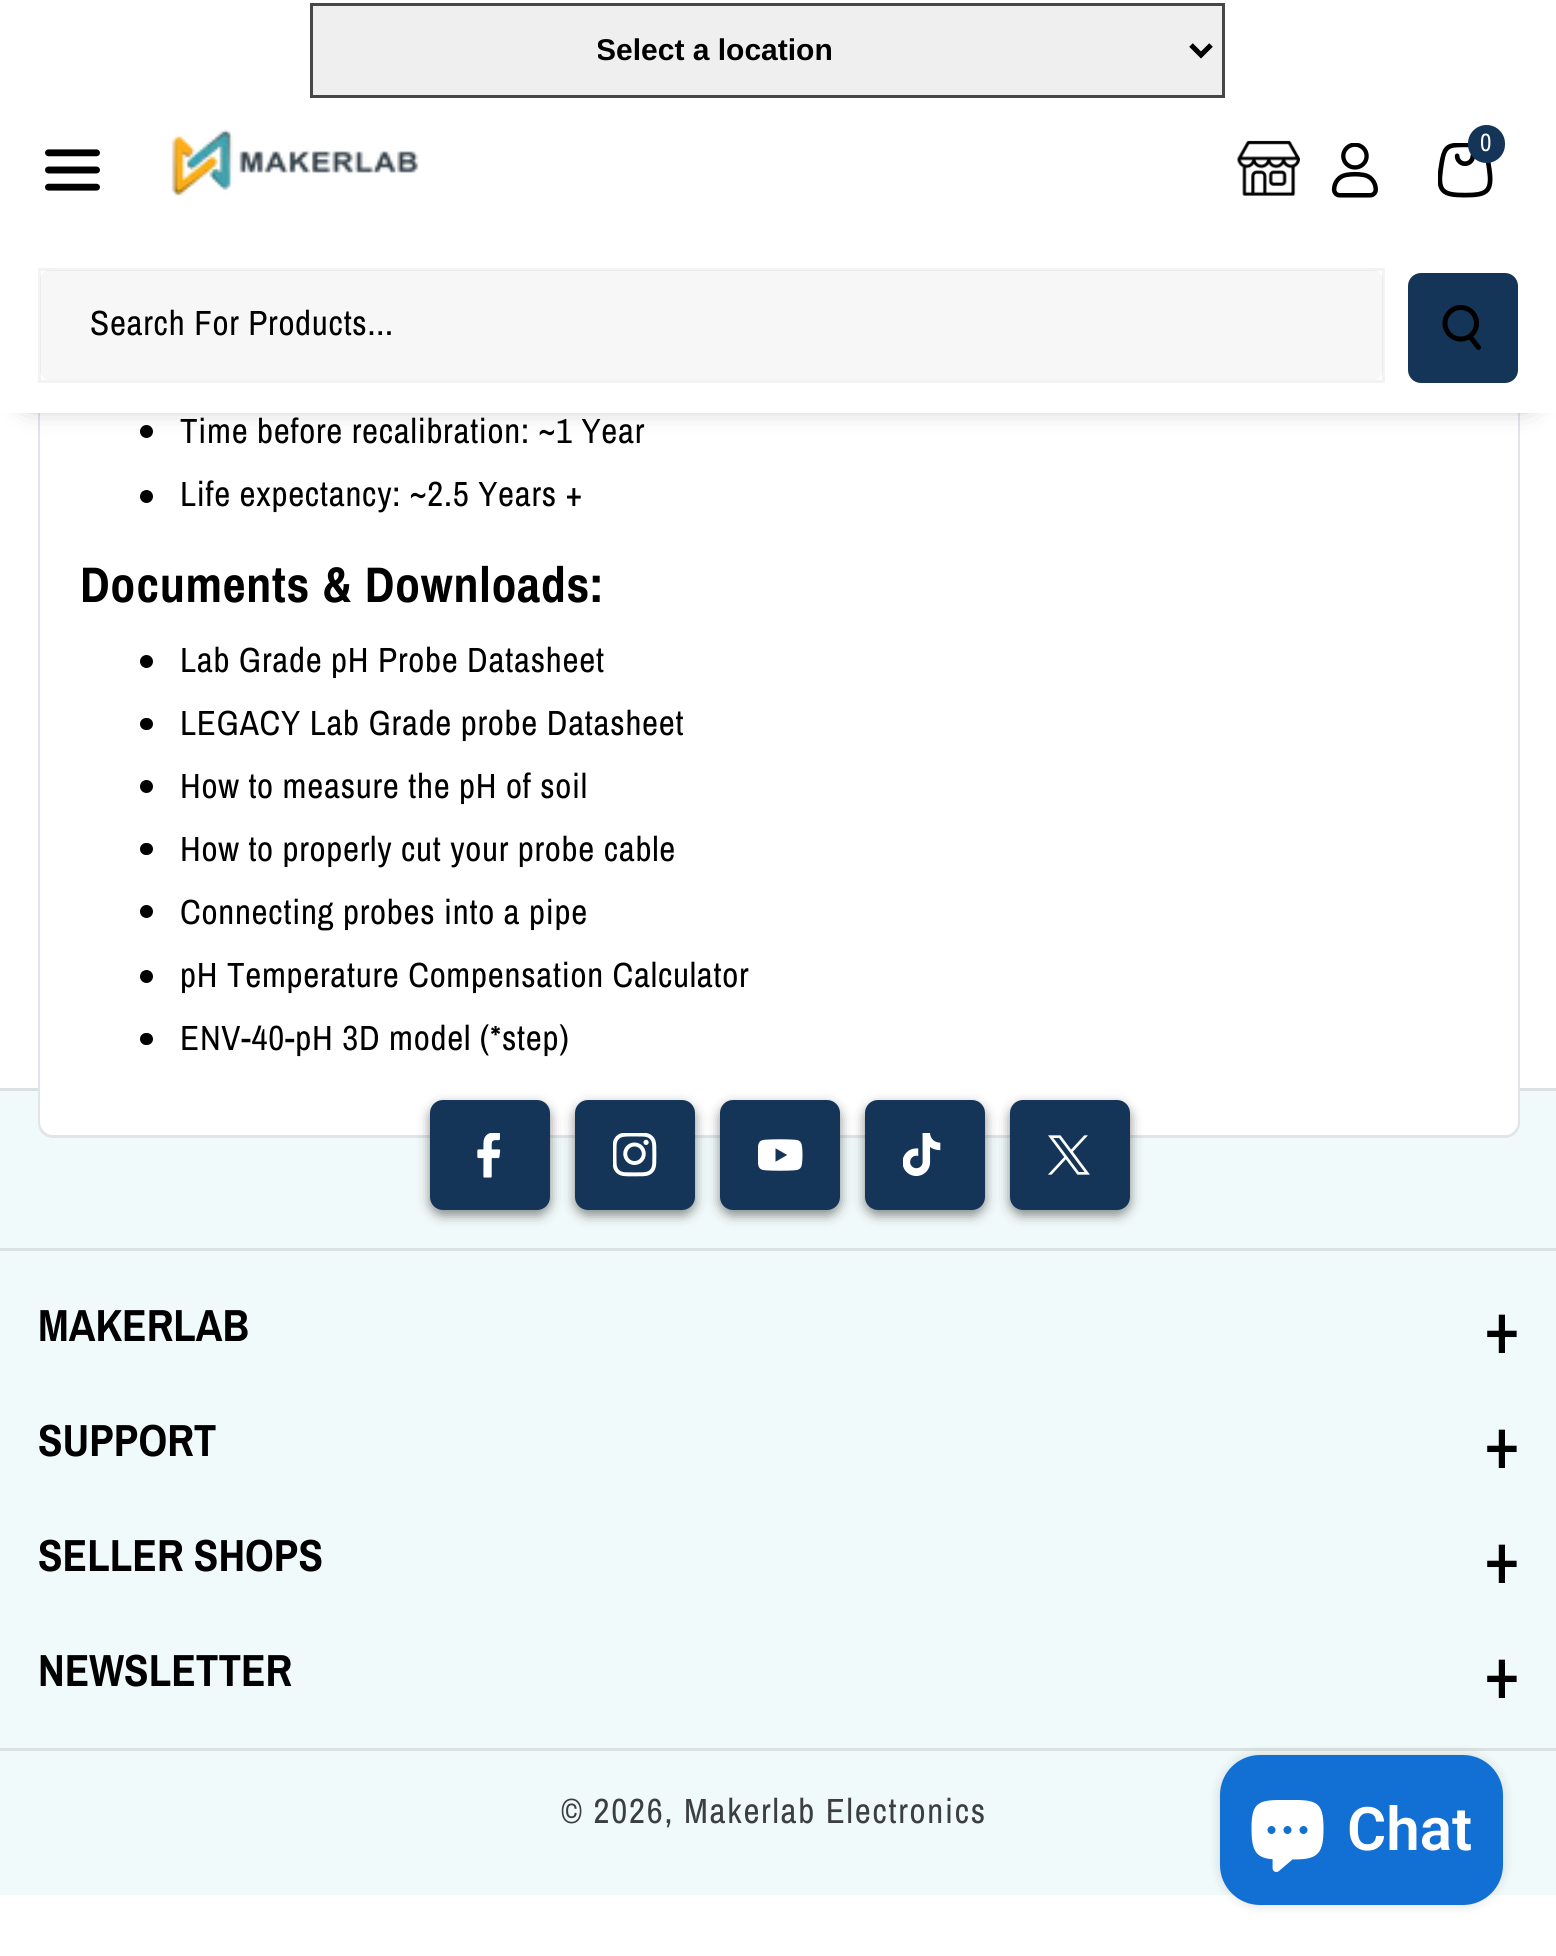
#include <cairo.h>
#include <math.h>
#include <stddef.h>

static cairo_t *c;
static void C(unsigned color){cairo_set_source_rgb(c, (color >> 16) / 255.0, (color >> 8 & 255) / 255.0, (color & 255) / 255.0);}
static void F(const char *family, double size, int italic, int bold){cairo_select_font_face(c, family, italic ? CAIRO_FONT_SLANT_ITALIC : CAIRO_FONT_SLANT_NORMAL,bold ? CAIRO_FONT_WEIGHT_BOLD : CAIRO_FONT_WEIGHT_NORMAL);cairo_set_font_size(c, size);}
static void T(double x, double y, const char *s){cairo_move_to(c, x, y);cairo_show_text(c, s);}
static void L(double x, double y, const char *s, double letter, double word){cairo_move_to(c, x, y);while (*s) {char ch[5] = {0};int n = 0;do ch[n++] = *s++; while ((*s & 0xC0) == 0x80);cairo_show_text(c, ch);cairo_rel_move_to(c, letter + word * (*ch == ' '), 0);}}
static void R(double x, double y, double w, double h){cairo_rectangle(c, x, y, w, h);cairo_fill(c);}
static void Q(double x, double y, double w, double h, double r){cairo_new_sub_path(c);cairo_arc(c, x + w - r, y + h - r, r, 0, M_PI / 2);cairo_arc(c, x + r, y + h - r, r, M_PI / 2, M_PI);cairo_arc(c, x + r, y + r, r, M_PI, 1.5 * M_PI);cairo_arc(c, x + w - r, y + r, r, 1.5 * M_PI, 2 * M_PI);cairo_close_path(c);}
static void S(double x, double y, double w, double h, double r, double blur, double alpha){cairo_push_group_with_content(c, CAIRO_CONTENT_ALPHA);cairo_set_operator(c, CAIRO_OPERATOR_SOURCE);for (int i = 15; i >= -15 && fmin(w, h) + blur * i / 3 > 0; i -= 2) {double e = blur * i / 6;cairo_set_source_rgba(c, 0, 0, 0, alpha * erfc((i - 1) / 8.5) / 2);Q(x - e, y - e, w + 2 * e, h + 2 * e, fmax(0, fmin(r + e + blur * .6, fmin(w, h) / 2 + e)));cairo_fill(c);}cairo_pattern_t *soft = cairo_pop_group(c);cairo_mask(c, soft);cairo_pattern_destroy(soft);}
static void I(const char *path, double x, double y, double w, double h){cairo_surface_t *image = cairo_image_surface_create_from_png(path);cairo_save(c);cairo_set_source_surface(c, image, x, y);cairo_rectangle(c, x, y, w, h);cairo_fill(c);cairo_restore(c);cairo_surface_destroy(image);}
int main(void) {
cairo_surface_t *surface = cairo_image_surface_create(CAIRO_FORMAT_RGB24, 1556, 1956);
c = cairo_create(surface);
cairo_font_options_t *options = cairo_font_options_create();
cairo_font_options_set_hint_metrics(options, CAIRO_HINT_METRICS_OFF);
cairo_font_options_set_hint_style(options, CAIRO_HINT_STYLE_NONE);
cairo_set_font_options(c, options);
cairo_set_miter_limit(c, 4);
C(0xffffff);
cairo_paint(c);
C(0xf1fafa);
R(0,1091,1556,804);
C(0xd9e1e1);
R(0,1088,1556,3);
Q(39.5,-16.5,1479,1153,13.5);
C(0xe1e5ea);
cairo_set_line_width(c,3);
cairo_stroke(c);
C(0xffffff);
cairo_new_path(c);
cairo_move_to(c,40,-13);
cairo_line_to(c,1518,-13);
cairo_line_to(c,1518,1122);
cairo_curve_to(c,1518,1129,1512,1135,1505,1135);
cairo_line_to(c,53,1135);
cairo_curve_to(c,46,1135,40,1129,40,1122);
cairo_close_path(c);
cairo_fill(c);
C(0x000000);
cairo_arc(c,146.5,431.5,6.5,0,2 * M_PI);
cairo_fill(c);
C(0x121212);
S(30,45,1498,353,0,15,.6);
C(0xffffff);
R(0,0,1556,413);
C(0xefefef);
cairo_rectangle(c,311.5,4.5,912,92);
cairo_fill_preserve(c);
C(0x474747);
cairo_stroke(c);
cairo_new_path(c);
cairo_move_to(c,1191,45);
cairo_line_to(c,1201,55);
cairo_line_to(c,1211,45);
C(0x000000);
cairo_set_line_width(c,5);
cairo_stroke(c);
cairo_save(c);
cairo_rectangle(c,598,30,310,40);
cairo_clip(c);
F("Liberation Sans",30,0,1);
T(596,60,"Select a location");
cairo_restore(c);
I("1.png",171,129,248,67);
I("2.png",1237,140,63,56);
I("3.png",1331,143,47,55);
I("4.png",1438,143,55,55);
C(0x153558);
Q(1468,125,37,38,18.5);
cairo_fill(c);
F("Archivo Narrow",25,0,0);
C(0xffffff);
L(1480,151,"0",.75,0);
I("5.png",45,149,55,42);
C(0xf7f7f7);
Q(40,270,1343,110,10);
cairo_fill(c);
cairo_rectangle(c,39.5,269.5,1344,112);
cairo_set_source_rgba(c,0,0,0,0.05);
cairo_set_line_width(c,3);
cairo_stroke(c);
F("Archivo Narrow",35,0,0);
C(0x000000);
L(90,335,"Search For Products...",.75,0);
C(0x153558);
Q(1408,273,110,110,13);
cairo_fill(c);
I("6.png",1442,305,39,45);
C(0x000000);
L(180,443,"Time before recalibration: ~1 Year",.75,0);
cairo_new_path(c);
cairo_arc(c,146.5,496.5,6.5,0,2 * M_PI);
cairo_fill(c);
L(180,506,"Life expectancy: ~2.5 Years +",.75,0);
F("Archivo Narrow",50,0,1);
L(80,602,"Documents & Downloads:",.75,0);
cairo_new_path(c);
cairo_arc(c,146.5,661.5,6.5,0,2 * M_PI);
cairo_fill(c);
F("Archivo Narrow",35,0,0);
L(180,672,"Lab Grade pH Probe Datasheet",.75,0);
Q(140,718,13,12,6);
cairo_fill(c);
L(180,735,"LEGACY Lab Grade probe Datasheet",.75,0);
cairo_new_path(c);
cairo_arc(c,146.5,786.5,6.5,0,2 * M_PI);
cairo_fill(c);
L(180,798,"How to measure the pH of soil",.75,0);
Q(140,843,13,12,6);
cairo_fill(c);
L(180,861,"How to properly cut your probe cable",.75,0);
cairo_new_path(c);
cairo_arc(c,146.5,911.5,6.5,0,2 * M_PI);
cairo_fill(c);
L(180,924,"Connecting probes into a pipe",.75,0);
cairo_new_path(c);
cairo_arc(c,146.5,976.5,6.5,0,2 * M_PI);
cairo_fill(c);
L(180,987,"pH Temperature Compensation Calculator",.75,0);
Q(140,1033,13,12,6);
cairo_fill(c);
L(180,1050,"ENV-40-pH 3D model (*step)",.75,0);
C(0xd9e1e1);
R(0,1248,1556,3);
C(0x121212);
S(430,1105,120,110,13,6,.5);
C(0x153558);
Q(430,1100,120,110,13);
cairo_fill(c);
I("7.png",477,1133,24,45);
C(0x121212);
S(575,1105,120,110,13,6,.5);
C(0x153558);
Q(575,1100,120,110,13);
cairo_fill(c);
I("8.png",613,1133,44,44);
C(0x121212);
S(720,1105,120,110,13,6,.5);
C(0x153558);
Q(720,1100,120,110,13);
cairo_fill(c);
I("9.png",758,1139,45,32);
C(0x121212);
S(865,1105,120,110,13,6,.5);
C(0x153558);
Q(865,1100,120,110,13);
cairo_fill(c);
I("10.png",903,1133,38,43);
C(0x121212);
S(1010,1105,120,110,13,6,.5);
C(0x153558);
Q(1010,1100,120,110,13);
cairo_fill(c);
I("11.png",1048,1135,42,40);
F("Archivo Narrow",45,0,1);
C(0x000000);
T(38,1341,"MAKERLAB");
F("Archivo Narrow",75,0,0);
T(1484,1353,"+");
F("Archivo Narrow",45,0,1);
T(38,1456,"SUPPORT");
F("Archivo Narrow",75,0,0);
T(1484,1468,"+");
F("Archivo Narrow",45,0,1);
T(38,1571,"SELLER SHOPS");
F("Archivo Narrow",75,0,0);
T(1484,1583,"+");
F("Archivo Narrow",45,0,1);
T(38,1686,"NEWSLETTER");
F("Archivo Narrow",75,0,0);
T(1484,1698,"+");
C(0xd9e1e1);
R(0,1748,1556,3);
F("Archivo Narrow",35,0,0);
C(0x3c3f3f);
L(561,1823,"© 2026, Makerlab Electronics",1.75,0);
C(0x000000);
S(1220,1755,283,150,40,6,.15);
C(0x126fd3);
Q(1220,1755,283,150,40);
cairo_fill(c);
I("12.png",1251,1800,73,72);
F("Roboto SemiBold",60,0,0);
C(0xffffff);
T(1347,1850,"Chat");
cairo_surface_write_to_png(surface, "o.png");
cairo_font_options_destroy(options);
cairo_destroy(c);
cairo_surface_destroy(surface);
return 0;
}
